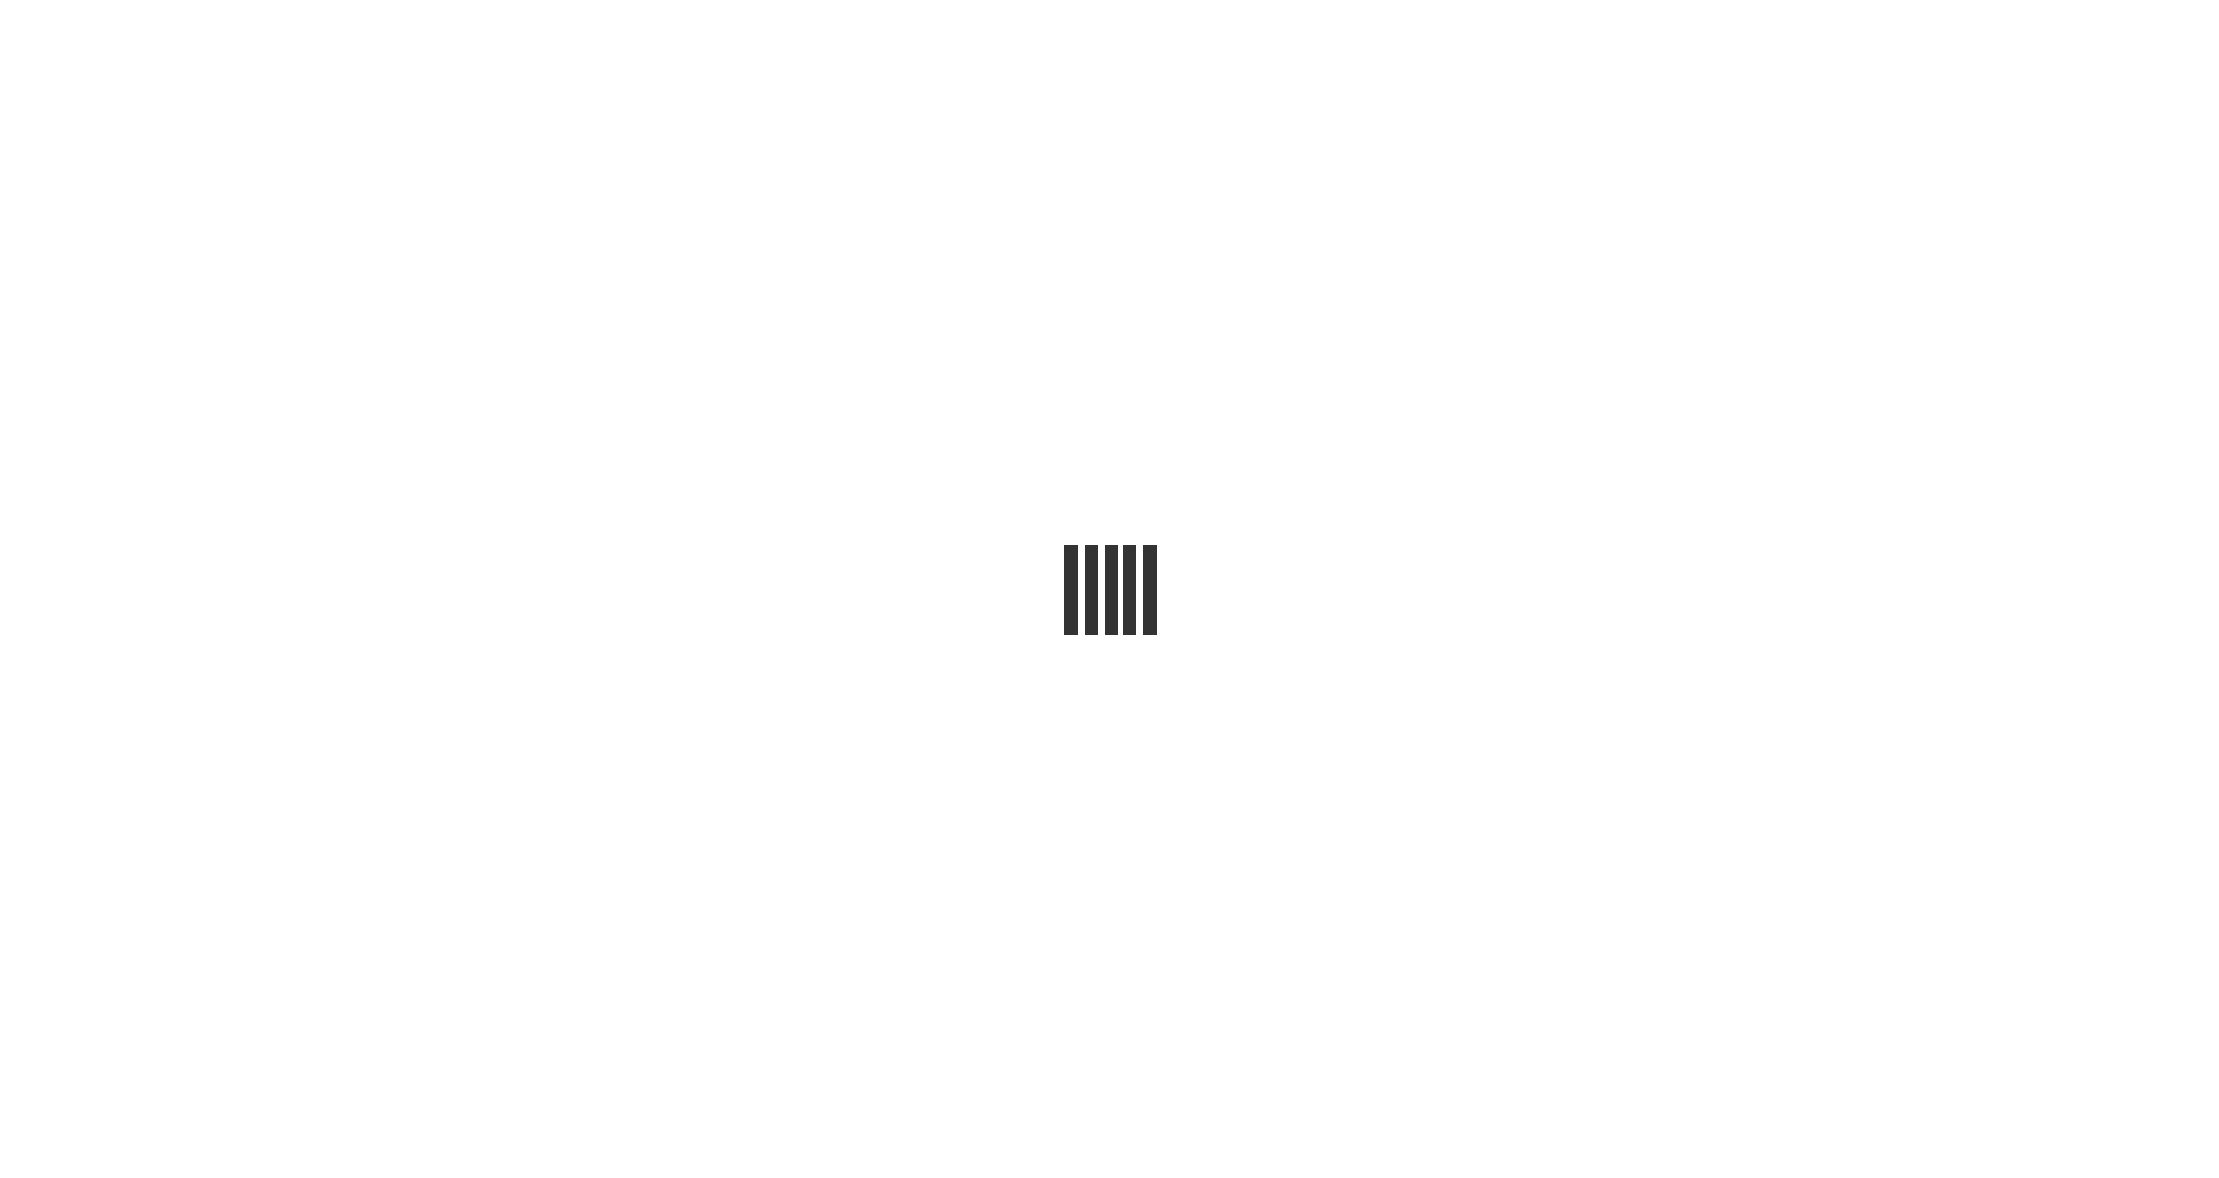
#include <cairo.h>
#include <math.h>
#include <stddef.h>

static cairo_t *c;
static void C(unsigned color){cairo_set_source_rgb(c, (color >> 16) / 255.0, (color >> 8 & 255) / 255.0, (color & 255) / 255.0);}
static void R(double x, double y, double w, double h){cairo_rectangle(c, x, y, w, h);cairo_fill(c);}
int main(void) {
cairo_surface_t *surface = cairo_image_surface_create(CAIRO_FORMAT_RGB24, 2219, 1178);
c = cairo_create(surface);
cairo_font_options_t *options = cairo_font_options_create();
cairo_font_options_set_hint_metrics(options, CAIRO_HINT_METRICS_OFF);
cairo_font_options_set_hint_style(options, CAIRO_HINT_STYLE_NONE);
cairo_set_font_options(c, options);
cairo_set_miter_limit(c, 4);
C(0xffffff);
cairo_paint(c);
C(0x333333);
R(1064,545,14,90);
R(1085,545,13,90);
R(1105,545,13,90);
R(1123,545,13,90);
R(1143,545,14,90);
cairo_surface_write_to_png(surface, "o.png");
cairo_font_options_destroy(options);
cairo_destroy(c);
cairo_surface_destroy(surface);
return 0;
}
